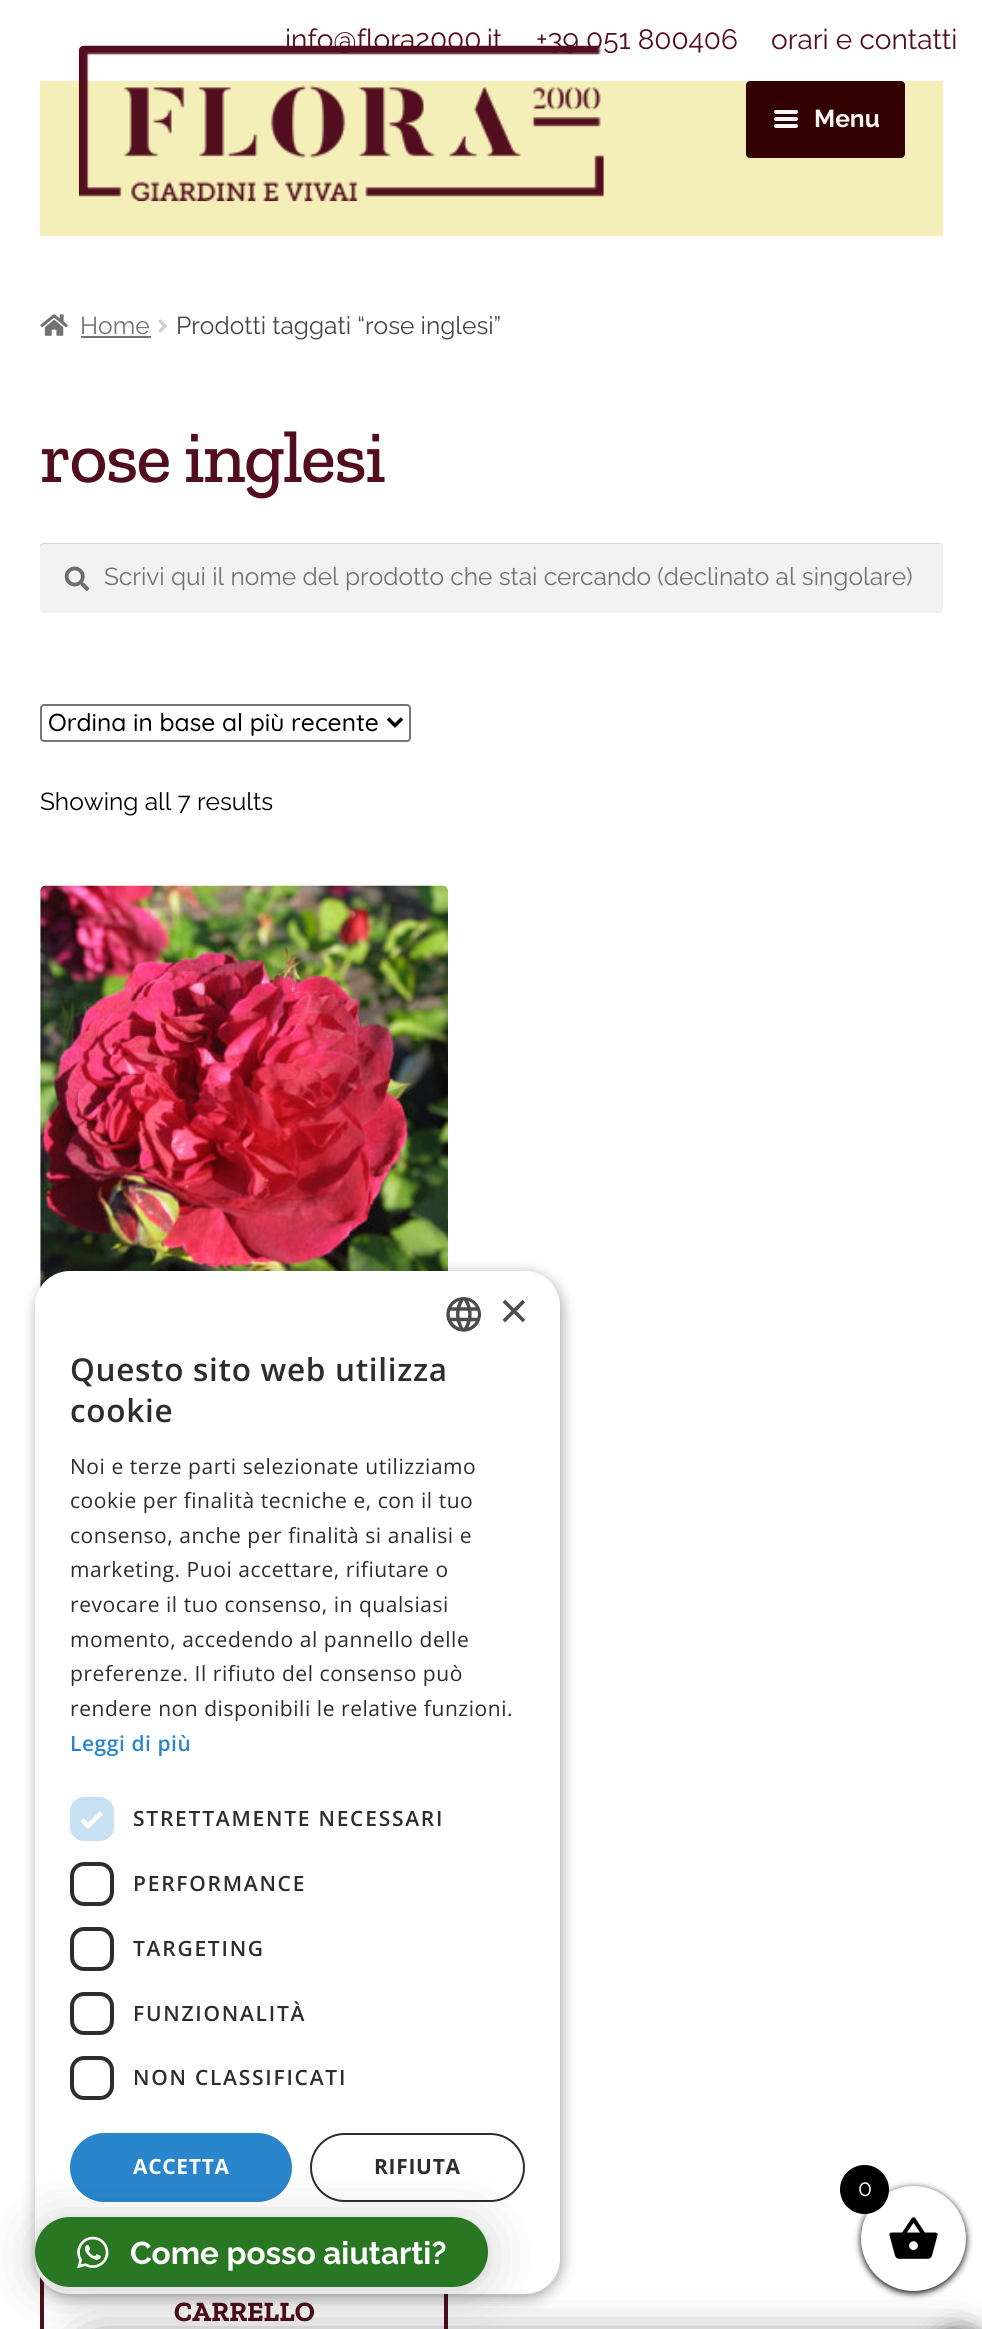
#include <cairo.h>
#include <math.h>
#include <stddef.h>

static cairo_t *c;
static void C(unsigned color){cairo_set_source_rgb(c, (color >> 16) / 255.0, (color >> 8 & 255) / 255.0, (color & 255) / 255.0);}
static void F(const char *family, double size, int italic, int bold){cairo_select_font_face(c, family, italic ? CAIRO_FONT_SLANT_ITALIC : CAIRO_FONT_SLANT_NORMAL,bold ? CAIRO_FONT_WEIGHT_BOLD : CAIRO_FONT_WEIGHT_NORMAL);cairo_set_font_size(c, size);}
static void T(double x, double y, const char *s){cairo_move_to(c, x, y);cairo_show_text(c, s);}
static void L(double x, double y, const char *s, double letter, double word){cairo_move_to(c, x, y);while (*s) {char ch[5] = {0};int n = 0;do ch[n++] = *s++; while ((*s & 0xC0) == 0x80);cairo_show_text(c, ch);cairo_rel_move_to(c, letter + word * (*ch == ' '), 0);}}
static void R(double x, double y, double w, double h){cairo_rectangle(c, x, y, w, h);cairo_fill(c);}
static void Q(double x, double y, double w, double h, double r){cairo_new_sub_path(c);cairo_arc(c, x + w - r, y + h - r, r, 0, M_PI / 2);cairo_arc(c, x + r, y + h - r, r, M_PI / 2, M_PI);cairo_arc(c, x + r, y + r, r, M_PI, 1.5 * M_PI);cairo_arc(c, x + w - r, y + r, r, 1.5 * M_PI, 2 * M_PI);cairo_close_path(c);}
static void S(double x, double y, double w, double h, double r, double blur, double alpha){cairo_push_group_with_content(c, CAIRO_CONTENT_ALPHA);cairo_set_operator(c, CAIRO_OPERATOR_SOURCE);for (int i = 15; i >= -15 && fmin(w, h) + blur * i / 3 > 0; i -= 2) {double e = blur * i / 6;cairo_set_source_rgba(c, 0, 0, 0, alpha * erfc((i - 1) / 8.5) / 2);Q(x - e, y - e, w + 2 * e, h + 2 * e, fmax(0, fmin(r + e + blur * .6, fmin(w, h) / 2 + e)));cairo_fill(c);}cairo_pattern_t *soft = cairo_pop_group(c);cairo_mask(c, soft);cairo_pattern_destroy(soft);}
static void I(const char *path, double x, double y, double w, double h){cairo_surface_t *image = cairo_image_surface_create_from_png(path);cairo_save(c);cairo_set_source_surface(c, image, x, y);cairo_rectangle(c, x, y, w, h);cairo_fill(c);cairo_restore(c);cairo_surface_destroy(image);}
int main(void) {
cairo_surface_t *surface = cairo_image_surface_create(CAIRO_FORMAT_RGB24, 982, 2329);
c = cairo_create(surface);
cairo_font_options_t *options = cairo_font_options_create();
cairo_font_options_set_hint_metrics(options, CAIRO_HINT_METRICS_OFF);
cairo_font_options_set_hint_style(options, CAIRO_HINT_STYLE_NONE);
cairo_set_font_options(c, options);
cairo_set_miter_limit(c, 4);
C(0xffffff);
cairo_paint(c);
F("Raleway",28,0,0);
C(0x520d1f);
T(285,49,"info@flora2000.it");
T(536,49,"+39 051 800406");
T(771,49,"orari e contatti");
C(0xf4eeb8);
R(40,81,903,155);
I("1.png",78,45,526,157);
C(0x330000);
Q(746,81,159,77,4);
cairo_fill(c);
C(0xfff7f7);
Q(774,110,24,4,2);
cairo_fill(c);
Q(774,117,24,4,2);
cairo_fill(c);
F("Raleway",24.5,0,1);
T(814,127,"Menu");
Q(774,124,24,4,2);
cairo_fill(c);
I("2.png",40,314,28,22);
F("Raleway",24.5,0,0);
C(0x727272);
T(80,334,"Home");
R(81,336,70,2);
I("3.png",158,319,9,14);
C(0x43454b);
T(176,334,"Prodotti taggati “rose inglesi”");
F("Zilla Slab Medium",73.5,0,0);
C(0x520d1f);
L(40,482,"rose inglesi",-1.75,0);
C(0xf2f2f2);
Q(40,543,903,70,4);
cairo_fill(c);
I("4.png",64,566,26,25);
cairo_set_source_rgba(c,0,0,0,0.12);
cairo_new_path(c);
cairo_move_to(c,44,544);
cairo_line_to(c,940,544);
cairo_curve_to(c,942,544,943,546,943,548);
cairo_curve_to(c,943,545,942,543,939,543);
cairo_line_to(c,44,543);
cairo_curve_to(c,41,543,40,545,40,548);
cairo_curve_to(c,40,546,42,544,44,544);
cairo_close_path(c);
cairo_fill(c);
F("Raleway",24.5,0,0);
C(0x727272);
T(104,585,"Scrivi qui il nome del prodotto che stai cercando (declinato al singolare)");
Q(41,705,369,36,3);
C(0x767676);
cairo_stroke(c);
cairo_new_path(c);
cairo_move_to(c,388,718.5);
cairo_line_to(c,395,725.5);
cairo_line_to(c,402,718.5);
C(0x000000);
cairo_set_line_width(c,3.5);
cairo_stroke(c);
F("Quicksand Medium",24.5,0,0);
T(48,731,"Ordina in base al più recente");
F("Raleway",24.5,0,0);
T(40,810,"Showing all 7 results");
I("5.png",40,885,408,403);
cairo_rectangle(c,42,2242,404,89);
C(0x520e1e);
cairo_set_line_width(c,4);
cairo_stroke(c);
F("Zilla Slab",28,0,1);
C(0x520d1f);
T(174,2321,"CARRELLO");
C(0x000000);
S(37,1274,525,1024,35,7,.35);
C(0xffffff);
Q(35,1271,525,1023,35);
cairo_fill(c);
I("6.png",446,1297,35,35);
F("Liberation Sans",51,0,0);
C(0x4d4d4d);
T(499,1328,"×");
F("Open Sans SemiBold",31.5,0,0);
C(0x2d2d2d);
L(70,1381,"Questo sito web utilizza",.7,0);
L(70,1422,"cookie",.7,0);
F("Open Sans",21,0,0);
L(70,1474,"Noi e terze parti selezionate utilizziamo",.55,0);
L(70,1508,"cookie per finalità tecniche e, con il tuo",.55,0);
L(70,1543,"consenso, anche per finalità si analisi e",.55,0);
L(70,1577,"marketing. Puoi accettare, rifiutare o",.55,0);
L(70,1612,"revocare il tuo consenso, in qualsiasi",.55,0);
L(70,1647,"momento, accedendo al pannello delle",.55,0);
L(70,1681,"preferenze. Il rifiuto del consenso può",.55,0);
L(70,1716,"rendere non disponibili le relative funzioni.",.55,0);
F("Open Sans SemiBold",21,0,0);
C(0x2986cc);
L(70,1751,"Leggi di più",.55,0);
C(0xc7e0f2);
Q(70,1797,44,44,14);
cairo_fill(c);
cairo_new_path(c);
cairo_move_to(c,82,1820);
cairo_line_to(c,88,1826);
cairo_line_to(c,101.5,1812.5);
C(0xffffff);
cairo_set_line_width(c,4.6);
cairo_stroke(c);
C(0x2d2d2d);
L(133,1826,"STRETTAMENTE NECESSARI",1.75,0);
Q(72,1864,40,40,12);
cairo_set_line_width(c,4);
cairo_stroke(c);
L(133,1891,"PERFORMANCE",1.75,0);
Q(72,1929,40,40,12);
cairo_stroke(c);
L(133,1956,"TARGETING",1.75,0);
Q(72,1994,40,39,12);
cairo_stroke(c);
L(133,2021,"FUNZIONALITÀ",1.75,0);
Q(72,2058,40,40,12);
cairo_stroke(c);
L(133,2085,"NON CLASSIFICATI",1.75,0);
C(0x2986cc);
Q(70,2133,222,69,34.5);
cairo_fill(c);
F("Open Sans",21,0,1);
C(0xffffff);
L(133,2174,"ACCETTA",.7,0);
Q(311,2134,213,67,33.5);
C(0x2d2d2d);
cairo_set_line_width(c,2);
cairo_stroke(c);
L(374,2174,"RIFIUTA",.7,0);
C(0x000000);
S(861,2188,105,105,52.5,3.5,1);
C(0xffffff);
cairo_arc(c,913.5,2238.5,52.5,0,2 * M_PI);
cairo_fill(c);
C(0x000000);
cairo_arc(c,864.5,2189.5,24.5,0,2 * M_PI);
cairo_fill(c);
F("Raleway",23,0,0);
C(0xffffff);
T(858,2196,"0");
I("7.png",889,2217,49,42);
C(0x000000);
S(35,2221,453,70,35,28,.16);
S(35,2219,453,70,35,5,.06);
C(0x297722);
Q(35,2217,453,70,35);
cairo_fill(c);
I("8.png",77,2236,32,33);
F("Raleway",31.5,0,1);
C(0xffffff);
T(130,2264,"Come posso aiutarti?");
C(0x020202);
S(91,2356,875,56,5,26,1);
S(936,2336,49,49,24.5,13,.75);
cairo_surface_write_to_png(surface, "o.png");
cairo_font_options_destroy(options);
cairo_destroy(c);
cairo_surface_destroy(surface);
return 0;
}
